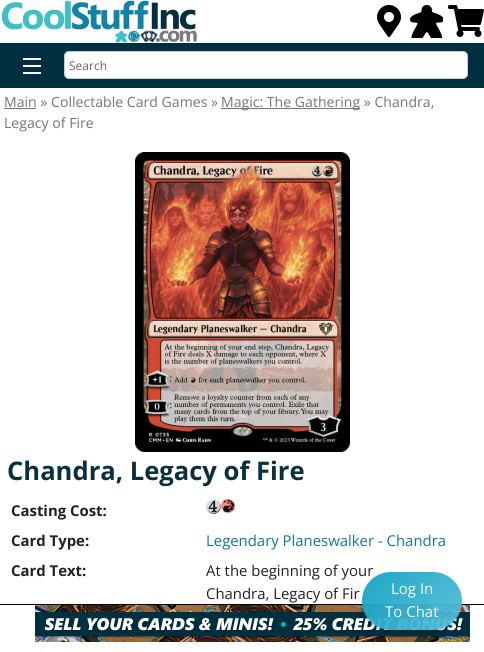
#include <cairo.h>
#include <math.h>
#include <stddef.h>

static cairo_t *c;
static void C(unsigned color){cairo_set_source_rgb(c, (color >> 16) / 255.0, (color >> 8 & 255) / 255.0, (color & 255) / 255.0);}
static void F(const char *family, double size, int italic, int bold){cairo_select_font_face(c, family, italic ? CAIRO_FONT_SLANT_ITALIC : CAIRO_FONT_SLANT_NORMAL,bold ? CAIRO_FONT_WEIGHT_BOLD : CAIRO_FONT_WEIGHT_NORMAL);cairo_set_font_size(c, size);}
static void T(double x, double y, const char *s){cairo_move_to(c, x, y);cairo_show_text(c, s);}
static void R(double x, double y, double w, double h){cairo_rectangle(c, x, y, w, h);cairo_fill(c);}
static void Q(double x, double y, double w, double h, double r){cairo_new_sub_path(c);cairo_arc(c, x + w - r, y + h - r, r, 0, M_PI / 2);cairo_arc(c, x + r, y + h - r, r, M_PI / 2, M_PI);cairo_arc(c, x + r, y + r, r, M_PI, 1.5 * M_PI);cairo_arc(c, x + w - r, y + r, r, 1.5 * M_PI, 2 * M_PI);cairo_close_path(c);}
static void S(double x, double y, double w, double h, double r, double blur, double alpha){cairo_push_group_with_content(c, CAIRO_CONTENT_ALPHA);cairo_set_operator(c, CAIRO_OPERATOR_SOURCE);for (int i = 15; i >= -15 && fmin(w, h) + blur * i / 3 > 0; i -= 2) {double e = blur * i / 6;cairo_set_source_rgba(c, 0, 0, 0, alpha * erfc((i - 1) / 8.5) / 2);Q(x - e, y - e, w + 2 * e, h + 2 * e, fmax(0, fmin(r + e + blur * .6, fmin(w, h) / 2 + e)));cairo_fill(c);}cairo_pattern_t *soft = cairo_pop_group(c);cairo_mask(c, soft);cairo_pattern_destroy(soft);}
static void I(const char *path, double x, double y, double w, double h){cairo_surface_t *image = cairo_image_surface_create_from_png(path);cairo_save(c);cairo_set_source_surface(c, image, x, y);cairo_rectangle(c, x, y, w, h);cairo_fill(c);cairo_restore(c);cairo_surface_destroy(image);}
int main(void) {
cairo_surface_t *surface = cairo_image_surface_create(CAIRO_FORMAT_RGB24, 484, 652);
c = cairo_create(surface);
cairo_font_options_t *options = cairo_font_options_create();
cairo_font_options_set_hint_metrics(options, CAIRO_HINT_METRICS_OFF);
cairo_font_options_set_hint_style(options, CAIRO_HINT_STYLE_NONE);
cairo_set_font_options(c, options);
cairo_set_miter_limit(c, 4);
cairo_pattern_t *gradient;
C(0xffffff);
cairo_paint(c);
I("1.png",1,0,196,43);
I("2.png",377,5,24,32);
I("3.png",410,5,33,33);
I("4.png",448,5,36,32);
C(0x00303f);
R(0,43,484,45);
C(0xffffff);
R(23,72,18,2);
R(23,65,18,2);
R(23,58,18,2);
Q(64.5,51.5,403,27,4.5);
cairo_fill_preserve(c);
C(0xcccccc);
cairo_set_line_width(c,1);
cairo_stroke(c);
F("Open Sans",12,0,0);
C(0x666666);
T(69,70,"Search");
F("Open Sans",14.1,0,0);
C(0x767676);
T(4,107,"Main » Collectable Card Games »");
R(4,108,32,1);
R(221,108,139,1);
T(221,107,"Magic: The Gathering » Chandra,");
T(4,128,"Legacy of Fire");
I("5.png",133,152,218,300);
F("Open Sans",25.6,0,1);
C(0x09303f);
T(7,480,"Chandra, Legacy of Fire");
F("Open Sans",14.9,0,1);
C(0x222222);
T(11,516,"Casting Cost:");
I("6.png",206,499,15,15);
I("7.png",221,499,14,14);
T(11,546,"Card Type:");
F("Open Sans",14.9,0,0);
C(0x137796);
T(206,546,"Legendary Planeswalker - Chandra");
F("Open Sans",14.9,0,1);
C(0x222222);
T(11,576,"Card Text:");
F("Open Sans",14.9,0,0);
T(206,576,"At the beginning of your");
T(206,599,"Chandra, Legacy of Fir");
C(0x000000);
R(0,604,484,1);
I("8.png",35,605,435,37);
cairo_save(c);
cairo_set_fill_rule(c,CAIRO_FILL_RULE_EVEN_ODD);
cairo_new_path(c);
cairo_move_to(c,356,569);
cairo_line_to(c,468,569);
cairo_line_to(c,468,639);
cairo_line_to(c,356,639);
cairo_close_path(c);
cairo_move_to(c,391,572);
cairo_line_to(c,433,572);
cairo_curve_to(c,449,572,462,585,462,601);
cairo_curve_to(c,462,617,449,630,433,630);
cairo_line_to(c,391,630);
cairo_curve_to(c,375,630,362,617,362,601);
cairo_curve_to(c,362,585,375,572,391,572);
cairo_close_path(c);
cairo_clip(c);
C(0x000000);
S(362,575,100,58,29,1.5,.19);
cairo_restore(c);
gradient = cairo_pattern_create_linear(373,562,452,641);
cairo_pattern_add_color_stop_rgba(gradient,0,0.063,0.635,0.773,.95);
cairo_pattern_add_color_stop_rgba(gradient,1,0.345,0.745,0.839,.95);
cairo_set_source(c,gradient);
cairo_pattern_destroy(gradient);
Q(362,572,100,58,29);
cairo_fill(c);
F("Open Sans",15,0,0);
C(0xf5fbfd);
T(391,594,"Log In");
T(385,617,"To Chat");
cairo_surface_write_to_png(surface, "o.png");
cairo_font_options_destroy(options);
cairo_destroy(c);
cairo_surface_destroy(surface);
return 0;
}
